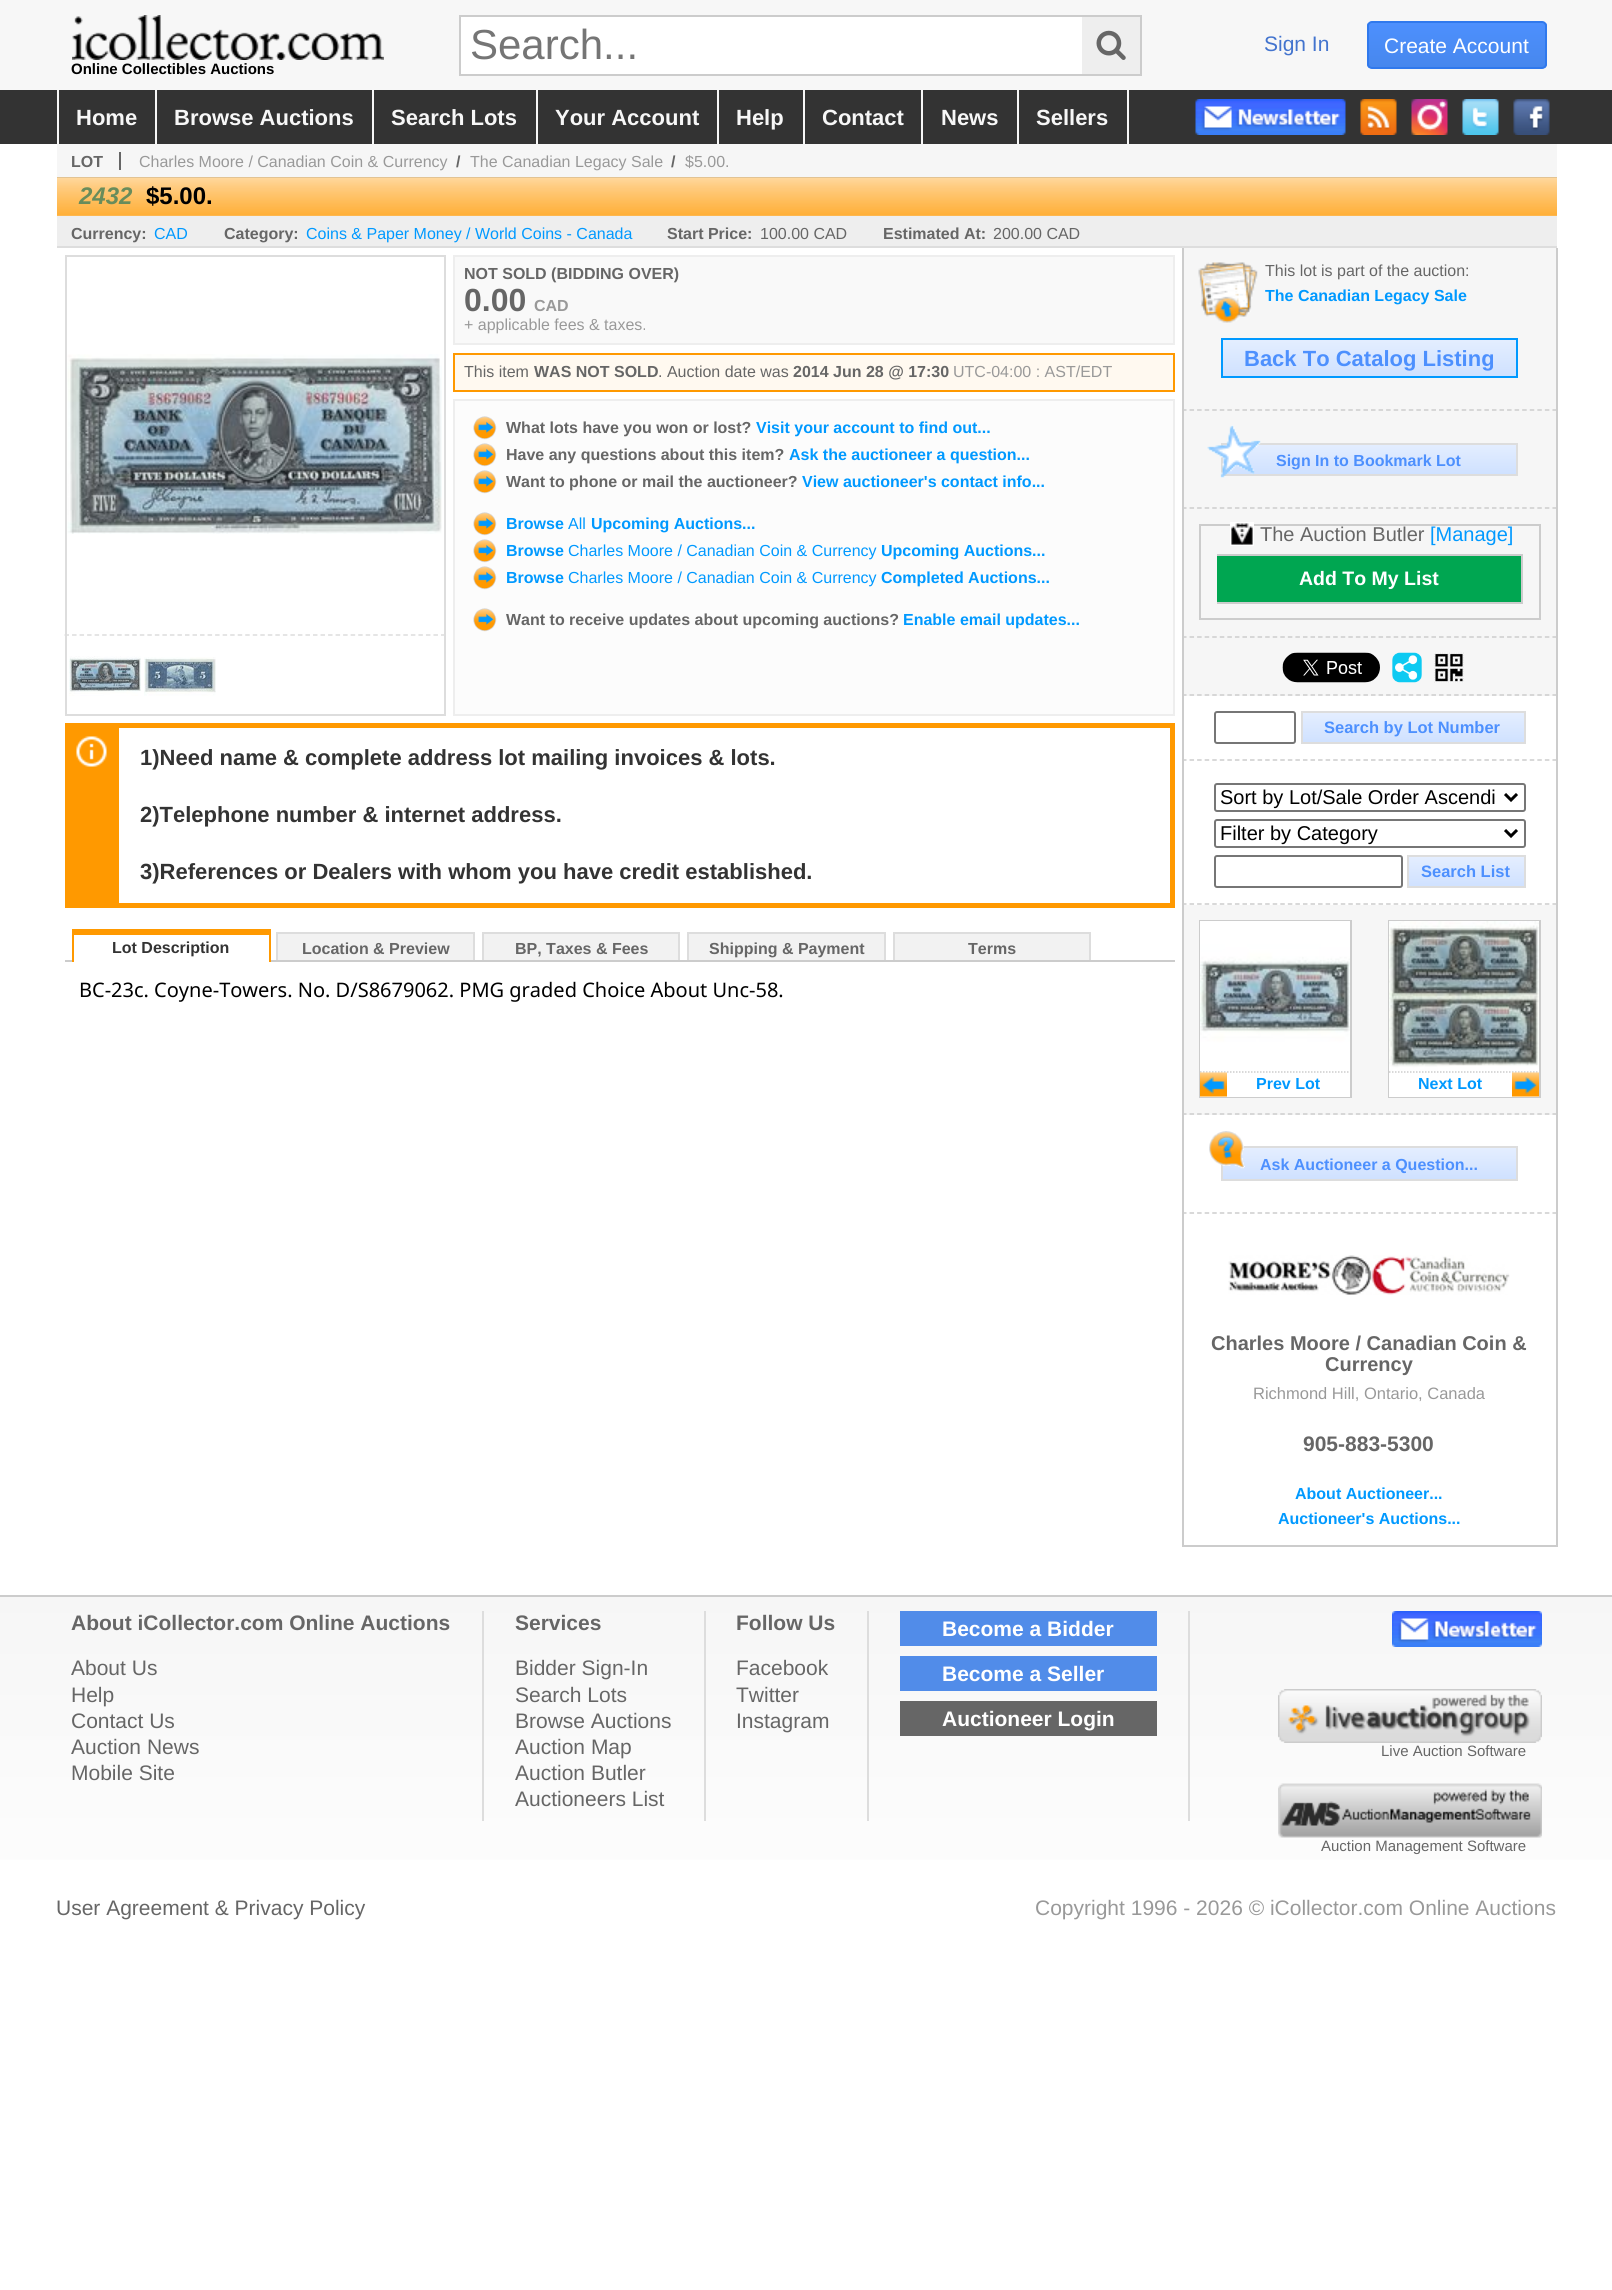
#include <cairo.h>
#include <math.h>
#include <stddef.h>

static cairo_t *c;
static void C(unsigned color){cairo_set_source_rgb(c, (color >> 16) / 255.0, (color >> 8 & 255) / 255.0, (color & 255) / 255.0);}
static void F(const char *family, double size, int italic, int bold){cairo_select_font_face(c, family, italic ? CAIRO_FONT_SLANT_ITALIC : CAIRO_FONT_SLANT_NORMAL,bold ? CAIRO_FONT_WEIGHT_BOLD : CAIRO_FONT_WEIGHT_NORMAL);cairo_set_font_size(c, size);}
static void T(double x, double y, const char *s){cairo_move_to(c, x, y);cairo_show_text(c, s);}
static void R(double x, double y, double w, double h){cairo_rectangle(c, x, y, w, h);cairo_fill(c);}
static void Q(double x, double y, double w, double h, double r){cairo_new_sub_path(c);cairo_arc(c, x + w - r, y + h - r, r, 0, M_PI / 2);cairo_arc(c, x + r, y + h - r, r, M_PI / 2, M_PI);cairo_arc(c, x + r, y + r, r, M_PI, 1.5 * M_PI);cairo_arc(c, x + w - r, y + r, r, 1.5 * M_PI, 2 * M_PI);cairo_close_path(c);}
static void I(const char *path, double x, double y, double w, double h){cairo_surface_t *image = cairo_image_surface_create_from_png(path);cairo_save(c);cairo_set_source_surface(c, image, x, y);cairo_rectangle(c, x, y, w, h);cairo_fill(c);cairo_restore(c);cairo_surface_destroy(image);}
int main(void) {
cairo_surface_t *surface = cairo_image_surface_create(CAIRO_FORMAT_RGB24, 1612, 2290);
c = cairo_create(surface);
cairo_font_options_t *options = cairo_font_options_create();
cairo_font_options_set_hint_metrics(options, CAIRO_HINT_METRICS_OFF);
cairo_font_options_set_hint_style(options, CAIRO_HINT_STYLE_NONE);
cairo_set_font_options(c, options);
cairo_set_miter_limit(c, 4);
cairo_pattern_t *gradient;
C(0xffffff);
cairo_paint(c);
C(0xf7f7f7);
R(0,0,1612,90);
C(0xffffff);
R(461,17,621,57);
C(0xcccccc);
R(459,15,683,2);
R(459,74,623,2);
R(459,15,2,60);
F("Liberation Sans",42,0,0);
C(0x757575);
T(470,59,"Search...");
C(0xeeeeee);
R(1082,17,58,57);
C(0xcccccc);
R(1140,15,2,60);
R(1082,74,60,2);
I("1.png",1096,30,30,30);
F("Liberation Sans",21,0,0);
C(0x4374ce);
T(1264,51,"Sign In");
cairo_save(c);
Q(1367,21,180,48,5);
cairo_clip(c);
gradient = cairo_pattern_create_linear(1457,22,1457,68);
cairo_pattern_add_color_stop_rgba(gradient,0,0.302,0.565,0.996,1);
cairo_pattern_add_color_stop_rgba(gradient,1,0.278,0.529,0.929,1);
cairo_set_source(c,gradient);
cairo_pattern_destroy(gradient);
R(1367,23,180,45);
cairo_restore(c);
Q(1368,22,178,46,4);
C(0x3079ed);
cairo_stroke(c);
C(0xffffff);
T(1384,53,"Create Account");
I("2.png",72,15,312,45);
F("Liberation Sans",15,0,1);
C(0x000000);
T(71,74,"Online Collectibles Auctions");
C(0x333333);
R(0,90,1612,54);
C(0xf7f7f7);
R(57,90,2,54);
F("Liberation Sans",22,0,1);
T(76,125,"Home");
R(155,90,2,54);
T(174,125,"Browse Auctions");
R(372,90,2,54);
T(391,125,"Search Lots");
R(536,90,2,54);
T(555,125,"Your Account");
R(717,90,2,54);
T(736,125,"Help");
R(803,90,2,54);
T(822,125,"Contact");
R(921,90,2,54);
T(941,125,"News");
R(1127,90,2,54);
R(1017,90,2,54);
T(1036,125,"Sellers");
I("3.png",1195,99,151,36);
I("4.png",1360,99,37,36);
I("5.png",1411,99,37,36);
I("6.png",1462,99,37,36);
I("7.png",1513,99,37,36);
C(0xf6f6f6);
R(57,144,1500,33);
F("Liberation Sans",16,0,1);
C(0x666666);
T(71,167,"LOT");
R(119,152,2,18);
F("Liberation Sans",16,0,0);
C(0x999999);
T(139,167,"Charles Moore / Canadian Coin & Currency");
F("Liberation Sans",16,0,1);
C(0x666666);
T(456,167,"/");
F("Liberation Sans",16,0,0);
C(0x999999);
T(470,167,"The Canadian Legacy Sale");
F("Liberation Sans",16,0,1);
C(0x666666);
T(671,167,"/");
F("Liberation Sans",16,0,0);
C(0x999999);
T(685,167,"$5.00.");
I("8.png",57,177,1500,39);
F("Liberation Sans",24,1,1);
C(0x698c5b);
T(79,204,"2432");
F("Liberation Sans",24,0,1);
C(0x000000);
T(146,204,"$5.00.");
C(0xeeeeee);
R(57,216,1500,30);
C(0xdddddd);
R(57,246,1500,2);
F("Liberation Sans",16,0,1);
C(0x666666);
T(71,239,"Currency:");
F("Liberation Sans",16,0,0);
C(0x0099ff);
T(154,239,"CAD");
F("Liberation Sans",16,0,1);
C(0x666666);
T(224,239,"Category:");
F("Liberation Sans",16,0,0);
C(0x0099ff);
T(306,239,"Coins & Paper Money / World Coins - Canada");
F("Liberation Sans",16,0,1);
C(0x666666);
T(667,239,"Start Price:");
F("Liberation Sans",16,0,0);
T(760,239,"100.00 CAD");
F("Liberation Sans",16,0,1);
T(883,239,"Estimated At:");
F("Liberation Sans",16,0,0);
T(993,239,"200.00 CAD");
C(0xdddddd);
R(65,255,381,2);
R(444,255,2,380);
R(65,255,2,380);
I("9.png",67,354,375,180);
cairo_new_path(c);
cairo_move_to(c,64.5,635);
cairo_line_to(c,445.5,635);
cairo_set_line_width(c,1.5);
cairo_set_dash(c,(double[]){4.5,3.03},2,0);
cairo_stroke(c);
R(444,635,2,81);
R(65,714,381,2);
R(65,635,2,81);
I("10.png",69,656,72,40);
I("11.png",144,657,72,39);
C(0xf9f9f9);
cairo_rectangle(c,454,256,720,88);
cairo_fill_preserve(c);
C(0xeeeeee);
cairo_set_line_width(c,2);
cairo_set_dash(c,NULL,0,0);
cairo_stroke(c);
F("Liberation Sans",16,0,1);
C(0x666666);
T(464,279,"NOT SOLD (BIDDING OVER)");
F("Liberation Sans",32,0,1);
T(464,311,"0.00");
F("Liberation Sans",16,0,1);
C(0x999999);
T(534,311,"CAD");
F("Liberation Sans",16,0,0);
T(464,330,"+ applicable fees & taxes.");
C(0xfff9f0);
cairo_rectangle(c,454,354,720,37);
cairo_fill_preserve(c);
C(0xff9900);
cairo_stroke(c);
C(0x666666);
T(464,377,"This item");
F("Liberation Sans",16,0,1);
T(534,377,"WAS NOT SOLD");
F("Liberation Sans",16,0,0);
T(658,377,". Auction date was");
F("Liberation Sans",16,0,1);
T(793,377,"2014 Jun 28 @ 17:30");
F("Liberation Sans",16,0,0);
C(0x999999);
T(953,377,"UTC-04:00 : AST/EDT");
C(0xfcfcfc);
cairo_rectangle(c,454,400,720,315);
cairo_fill_preserve(c);
C(0xeeeeee);
cairo_stroke(c);
I("12.png",473,416,24,24);
F("Liberation Sans",16,0,1);
C(0x666666);
T(506,433,"What lots have you won or lost?");
C(0x0099ff);
T(756,433,"Visit your account to find out...");
I("12.png",473,443,24,24);
C(0x666666);
T(506,460,"Have any questions about this item?");
C(0x0099ff);
T(789,460,"Ask the auctioneer a question...");
I("12.png",473,470,24,24);
C(0x666666);
T(506,487,"Want to phone or mail the auctioneer?");
C(0x0099ff);
T(802,487,"View auctioneer's contact info...");
I("12.png",473,512,24,24);
T(506,529,"Browse");
F("Liberation Sans",16,0,0);
T(568,529,"All");
F("Liberation Sans",16,0,1);
T(591,529,"Upcoming Auctions...");
I("12.png",473,539,24,24);
T(506,556,"Browse");
F("Liberation Sans",16,0,0);
T(568,556,"Charles Moore / Canadian Coin & Currency");
F("Liberation Sans",16,0,1);
T(881,556,"Upcoming Auctions...");
I("12.png",473,566,24,24);
T(506,583,"Browse");
F("Liberation Sans",16,0,0);
T(568,583,"Charles Moore / Canadian Coin & Currency");
F("Liberation Sans",16,0,1);
T(881,583,"Completed Auctions...");
I("12.png",473,608,24,24);
C(0x666666);
T(506,625,"Want to receive updates about upcoming auctions?");
C(0x0099ff);
T(903,625,"Enable email updates...");
C(0xff9900);
R(119,723,1056,5);
R(1170,723,5,185);
R(119,903,1056,5);
R(65,723,54,185);
I("13.png",76,736,31,31);
F("Liberation Sans",22,0,1);
C(0x333333);
T(140,765,"1)Need name & complete address lot mailing invoices & lots.");
T(140,822,"2)Telephone number & internet address.");
T(140,879,"3)References or Dealers with whom you have credit established.");
C(0xcccccc);
R(65,960,1110,2);
C(0xffffff);
R(74,960,195,2);
C(0xff9900);
R(72,929,198,6);
R(269,929,2,33);
R(72,929,2,33);
F("Liberation Sans",16,0,1);
C(0x333333);
T(112,953,"Lot Description");
C(0xf2f2f2);
R(278,934,195,26);
C(0xdddddd);
R(276,932,198,2);
R(473,932,2,28);
R(276,932,2,28);
C(0x666666);
T(302,954,"Location & Preview");
C(0xf2f2f2);
R(484,934,194,26);
C(0xdddddd);
R(482,932,198,2);
R(678,932,2,28);
R(482,932,2,28);
C(0x666666);
T(515,954,"BP, Taxes & Fees");
C(0xf2f2f2);
R(689,934,195,26);
C(0xdddddd);
R(687,932,198,2);
R(884,932,2,28);
R(687,932,2,28);
C(0x666666);
T(709,954,"Shipping & Payment");
C(0xf2f2f2);
R(895,934,194,26);
C(0xdddddd);
R(893,932,198,2);
R(1089,932,2,28);
R(893,932,2,28);
C(0x666666);
T(968,954,"Terms");
F("Noto Sans",20,0,0);
C(0x000000);
T(79,997,"BC-23c. Coyne-Towers. No. D/S8679062. PMG graded Choice About Unc-58.");
C(0xf6f6f6);
R(1184,248,372,448);
C(0xcccccc);
R(1556,248,2,1299);
cairo_new_path(c);
cairo_move_to(c,1182,410);
cairo_line_to(c,1557,410);
cairo_set_line_width(c,1.5);
cairo_set_dash(c,(double[]){4.5,3.06},2,0);
cairo_stroke(c);
R(1182,248,2,163);
I("14.png",1198,262,60,61);
F("Liberation Sans",16,0,0);
C(0x666666);
T(1265,276,"This lot is part of the auction:");
F("Liberation Sans",16,0,1);
C(0x0099ff);
T(1265,301,"The Canadian Legacy Sale");
gradient = cairo_pattern_create_linear(1370,339,1370,377);
cairo_pattern_add_color_stop_rgba(gradient,0,0.894,0.933,1,1);
cairo_pattern_add_color_stop_rgba(gradient,1,0.812,0.882,1,1);
cairo_set_source(c,gradient);
cairo_pattern_destroy(gradient);
R(1223,340,293,36);
cairo_rectangle(c,1222,339,295,38);
C(0x0099ff);
cairo_set_line_width(c,2);
cairo_set_dash(c,NULL,0,0);
cairo_stroke(c);
F("Liberation Sans",22,0,1);
C(0x4d90fe);
T(1244,366,"Back To Catalog Listing");
cairo_new_path(c);
cairo_move_to(c,1182,508);
cairo_line_to(c,1557,508);
C(0xcccccc);
cairo_set_line_width(c,1.5);
cairo_set_dash(c,(double[]){4.5,3.06},2,0);
cairo_stroke(c);
R(1182,411,2,98);
gradient = cairo_pattern_create_linear(1370,444,1370,474);
cairo_pattern_add_color_stop_rgba(gradient,0,0.894,0.933,1,1);
cairo_pattern_add_color_stop_rgba(gradient,1,0.812,0.882,1,1);
cairo_set_source(c,gradient);
cairo_pattern_destroy(gradient);
R(1223,445,293,29);
cairo_rectangle(c,1222,444,295,31);
C(0xdddddd);
cairo_set_line_width(c,2);
cairo_set_dash(c,NULL,0,0);
cairo_stroke(c);
I("15.png",1207,425,54,53);
F("Liberation Sans",16,0,1);
C(0x4d90fe);
T(1276,466,"Sign In to Bookmark Lot");
cairo_new_path(c);
cairo_move_to(c,1182,637);
cairo_line_to(c,1557,637);
C(0xcccccc);
cairo_set_line_width(c,1.5);
cairo_set_dash(c,(double[]){4.5,3.06},2,0);
cairo_stroke(c);
R(1182,509,2,129);
cairo_rectangle(c,1200,525,340,94);
cairo_set_line_width(c,2);
cairo_set_dash(c,NULL,0,0);
cairo_stroke(c);
I("16.png",1230,522,24,24);
F("Liberation Sans",20,0,0);
C(0x666666);
T(1260,541,"The Auction Butler");
C(0x0099ff);
T(1430,541,"[Manage]");
C(0x00a651);
R(1217,556,304,46);
C(0xcccccc);
R(1217,554,306,2);
R(1521,554,2,49);
R(1217,602,306,2);
F("Liberation Sans",19.5,0,1);
C(0xffffff);
T(1299,585,"Add To My List");
cairo_new_path(c);
cairo_move_to(c,1182,695);
cairo_line_to(c,1557,695);
C(0xcccccc);
cairo_set_line_width(c,1.5);
cairo_set_dash(c,(double[]){4.5,3.06},2,0);
cairo_stroke(c);
R(1182,638,2,58);
I("17.png",1282,652,98,31);
I("18.png",1392,652,30,31);
I("19.png",1434,652,30,31);
cairo_new_path(c);
cairo_move_to(c,1182,760);
cairo_line_to(c,1557,760);
cairo_stroke(c);
R(1182,696,2,65);
Q(1215,712,80,31,2);
C(0x767676);
cairo_set_line_width(c,2);
cairo_set_dash(c,NULL,0,0);
cairo_stroke(c);
gradient = cairo_pattern_create_linear(1413,713,1413,743);
cairo_pattern_add_color_stop_rgba(gradient,0,0.894,0.933,1,1);
cairo_pattern_add_color_stop_rgba(gradient,1,0.812,0.882,1,1);
cairo_set_source(c,gradient);
cairo_pattern_destroy(gradient);
R(1303,713,221,29);
cairo_rectangle(c,1302,712,223,31);
C(0xdddddd);
cairo_stroke(c);
F("Liberation Sans",16.5,0,1);
C(0x4d90fe);
T(1324,733,"Search by Lot Number");
cairo_new_path(c);
cairo_move_to(c,1182,904);
cairo_line_to(c,1557,904);
C(0xcccccc);
cairo_set_line_width(c,1.5);
cairo_set_dash(c,(double[]){4.5,3.06},2,0);
cairo_stroke(c);
R(1182,761,2,144);
Q(1215,784,310,27,2);
C(0x767676);
cairo_set_line_width(c,2);
cairo_set_dash(c,NULL,0,0);
cairo_stroke(c);
cairo_new_path(c);
cairo_move_to(c,1505,794);
cairo_line_to(c,1511,800);
cairo_line_to(c,1517,794);
C(0x000000);
cairo_set_line_width(c,3);
cairo_stroke(c);
F("Liberation Sans",20,0,0);
T(1220,804,"Sort by Lot/Sale Order Ascendi");
Q(1215,820,310,27,2);
C(0x767676);
cairo_set_line_width(c,2);
cairo_stroke(c);
cairo_new_path(c);
cairo_move_to(c,1505,830);
cairo_line_to(c,1511,836);
cairo_line_to(c,1517,830);
C(0x000000);
cairo_set_line_width(c,3);
cairo_stroke(c);
T(1220,840,"Filter by Category");
Q(1215,856,187,31,2);
C(0x767676);
cairo_set_line_width(c,2);
cairo_stroke(c);
gradient = cairo_pattern_create_linear(1466,857,1466,887);
cairo_pattern_add_color_stop_rgba(gradient,0,0.894,0.933,1,1);
cairo_pattern_add_color_stop_rgba(gradient,1,0.812,0.882,1,1);
cairo_set_source(c,gradient);
cairo_pattern_destroy(gradient);
R(1409,857,115,29);
cairo_rectangle(c,1408,856,117,31);
C(0xdddddd);
cairo_stroke(c);
F("Liberation Sans",16.5,0,1);
C(0x4d90fe);
T(1421,877,"Search List");
C(0xf6f6f6);
R(1184,905,372,210);
cairo_new_path(c);
cairo_move_to(c,1182,1114);
cairo_line_to(c,1557,1114);
C(0xcccccc);
cairo_set_line_width(c,1.5);
cairo_set_dash(c,(double[]){4.5,3.06},2,0);
cairo_stroke(c);
R(1182,905,2,210);
cairo_rectangle(c,1200,921,151,176);
cairo_set_line_width(c,2);
cairo_set_dash(c,NULL,0,0);
cairo_stroke(c);
I("20.png",1200,921,150,150);
C(0xffffff);
R(1200,1071,150,26);
cairo_new_path(c);
cairo_move_to(c,1200,1072);
cairo_line_to(c,1350,1072);
C(0xcccccc);
cairo_set_line_width(c,1.5);
cairo_set_dash(c,(double[]){1.5,1.5},2,0);
cairo_stroke(c);
I("21.png",1200,1072,27,25);
F("Liberation Sans",16,0,1);
C(0x0099ff);
T(1256,1089,"Prev Lot");
cairo_rectangle(c,1389,921,151,176);
C(0xcccccc);
cairo_set_line_width(c,2);
cairo_set_dash(c,NULL,0,0);
cairo_stroke(c);
I("22.png",1389,921,150,150);
C(0xffffff);
R(1389,1071,150,26);
cairo_new_path(c);
cairo_move_to(c,1389,1072);
cairo_line_to(c,1539,1072);
C(0xcccccc);
cairo_set_line_width(c,1.5);
cairo_set_dash(c,(double[]){1.5,1.5},2,0);
cairo_stroke(c);
C(0x0099ff);
T(1418,1089,"Next Lot");
I("23.png",1512,1072,27,25);
cairo_new_path(c);
cairo_move_to(c,1182,1213);
cairo_line_to(c,1557,1213);
C(0xcccccc);
cairo_set_dash(c,(double[]){4.5,3.06},2,0);
cairo_stroke(c);
R(1182,1115,2,99);
gradient = cairo_pattern_create_linear(1370,1148,1370,1179);
cairo_pattern_add_color_stop_rgba(gradient,0,0.894,0.933,1,1);
cairo_pattern_add_color_stop_rgba(gradient,1,0.812,0.882,1,1);
cairo_set_source(c,gradient);
cairo_pattern_destroy(gradient);
R(1223,1148,293,31);
cairo_rectangle(c,1222,1147,295,33);
C(0xdddddd);
cairo_set_line_width(c,2);
cairo_set_dash(c,NULL,0,0);
cairo_stroke(c);
I("24.png",1209,1131,36,38);
C(0x4d90fe);
T(1260,1170,"Ask Auctioneer a Question...");
C(0xcccccc);
R(1182,1545,375,2);
R(1182,1214,2,333);
I("25.png",1228,1255,282,40);
F("Liberation Sans",20,0,1);
C(0x666666);
T(1211,1350,"Charles Moore / Canadian Coin &");
T(1325,1371,"Currency");
F("Liberation Sans",16.5,0,0);
C(0x999999);
T(1253,1399,"Richmond Hill, Ontario, Canada");
F("Liberation Sans",21,0,1);
C(0x666666);
T(1303,1451,"905-883-5300");
F("Liberation Sans",16,0,1);
C(0x0099ff);
T(1295,1499,"About Auctioneer...");
T(1278,1524,"Auctioneer's Auctions...");
gradient = cairo_pattern_create_linear(806,1596,806,1962);
cairo_pattern_add_color_stop_rgba(gradient,0,0.965,0.965,0.965,1);
cairo_pattern_add_color_stop_rgba(gradient,1,1,1,1,1);
cairo_set_source(c,gradient);
cairo_pattern_destroy(gradient);
R(0,1597,1612,263);
C(0xcccccc);
R(0,1595,1612,2);
C(0xdddddd);
R(482,1611,2,210);
F("Liberation Sans",21,0,1);
C(0x666666);
T(71,1630,"About iCollector.com Online Auctions");
F("Liberation Sans",21,0,0);
T(71,1675,"About Us");
T(71,1702,"Help");
T(71,1728,"Contact Us");
T(71,1754,"Auction News");
T(71,1780,"Mobile Site");
C(0xdddddd);
R(704,1611,2,210);
F("Liberation Sans",21,0,1);
C(0x666666);
T(515,1630,"Services");
F("Liberation Sans",21,0,0);
T(515,1675,"Bidder Sign-In");
T(515,1702,"Search Lots");
T(515,1728,"Browse Auctions");
T(515,1754,"Auction Map");
T(515,1780,"Auction Butler");
T(515,1806,"Auctioneers List");
C(0xdddddd);
R(867,1611,2,210);
F("Liberation Sans",21,0,1);
C(0x666666);
T(736,1630,"Follow Us");
F("Liberation Sans",21,0,0);
T(736,1675,"Facebook");
T(736,1702,"Twitter");
T(736,1728,"Instagram");
C(0xdddddd);
R(1188,1611,2,210);
C(0x518ce9);
R(900,1611,257,35);
F("Liberation Sans",21,0,1);
C(0xffffff);
T(942,1636,"Become a Bidder");
C(0x518ce9);
R(900,1656,257,35);
C(0xffffff);
T(942,1681,"Become a Seller");
C(0x666666);
R(900,1701,257,35);
C(0xffffff);
T(942,1726,"Auctioneer Login");
I("26.png",1392,1611,150,36);
I("27.png",1278,1689,264,54);
F("Liberation Sans",15,0,0);
C(0x666666);
T(1381,1756,"Live Auction Software");
I("28.png",1278,1783,264,55);
T(1321,1851,"Auction Management Software");
F("Liberation Sans",21,0,0);
T(56,1915,"User Agreement & Privacy Policy");
C(0x999999);
T(1035,1915,"Copyright 1996 - 2026 © iCollector.com Online Auctions");
cairo_surface_write_to_png(surface, "o.png");
cairo_font_options_destroy(options);
cairo_destroy(c);
cairo_surface_destroy(surface);
return 0;
}
